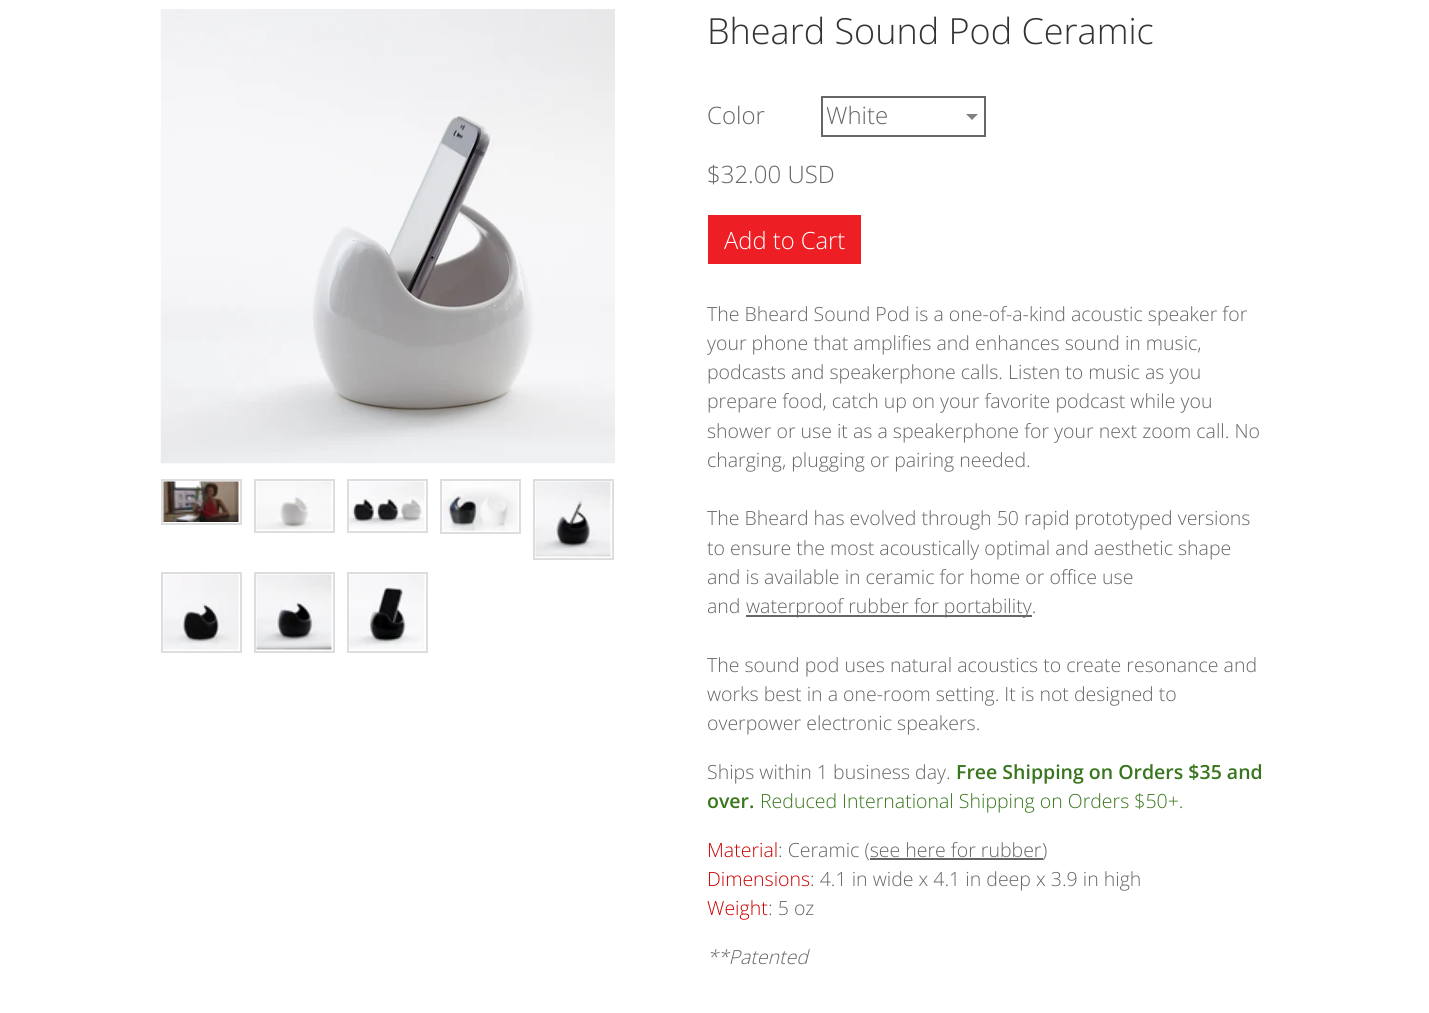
#include <cairo.h>
#include <math.h>
#include <stddef.h>

static cairo_t *c;
static void C(unsigned color){cairo_set_source_rgb(c, (color >> 16) / 255.0, (color >> 8 & 255) / 255.0, (color & 255) / 255.0);}
static void F(const char *family, double size, int italic, int bold){cairo_select_font_face(c, family, italic ? CAIRO_FONT_SLANT_ITALIC : CAIRO_FONT_SLANT_NORMAL,bold ? CAIRO_FONT_WEIGHT_BOLD : CAIRO_FONT_WEIGHT_NORMAL);cairo_set_font_size(c, size);}
static void T(double x, double y, const char *s){cairo_move_to(c, x, y);cairo_show_text(c, s);}
static void R(double x, double y, double w, double h){cairo_rectangle(c, x, y, w, h);cairo_fill(c);}
static void I(const char *path, double x, double y, double w, double h){cairo_surface_t *image = cairo_image_surface_create_from_png(path);cairo_save(c);cairo_set_source_surface(c, image, x, y);cairo_rectangle(c, x, y, w, h);cairo_fill(c);cairo_restore(c);cairo_surface_destroy(image);}
int main(void) {
cairo_surface_t *surface = cairo_image_surface_create(CAIRO_FORMAT_RGB24, 1429, 1013);
c = cairo_create(surface);
cairo_font_options_t *options = cairo_font_options_create();
cairo_font_options_set_hint_metrics(options, CAIRO_HINT_METRICS_OFF);
cairo_font_options_set_hint_style(options, CAIRO_HINT_STYLE_NONE);
cairo_set_font_options(c, options);
cairo_set_miter_limit(c, 4);
C(0xffffff);
cairo_paint(c);
I("1.png",160,9,455,455);
cairo_rectangle(c,162,480,79,44);
C(0xdddddd);
cairo_stroke(c);
I("2.png",163,481,76,41);
cairo_rectangle(c,255,480,79,52);
cairo_stroke(c);
I("3.png",256,481,76,49);
cairo_rectangle(c,348,480,79,52);
cairo_stroke(c);
I("4.png",349,481,76,49);
cairo_rectangle(c,441,480,79,53);
cairo_stroke(c);
I("5.png",442,481,76,50);
cairo_rectangle(c,534,480,79,79);
cairo_stroke(c);
I("6.png",535,481,76,76);
cairo_rectangle(c,162,573,79,79);
cairo_stroke(c);
I("7.png",163,574,76,76);
cairo_rectangle(c,255,573,79,79);
cairo_stroke(c);
I("8.png",256,574,76,76);
cairo_rectangle(c,348,573,79,79);
cairo_stroke(c);
I("9.png",349,574,76,76);
F("Open Sans Light",36,0,0);
C(0x333333);
T(707,44,"Bheard Sound Pod Ceramic");
F("Open Sans Light",24,0,0);
C(0x666666);
T(707,124,"Color");
C(0x808080);
cairo_new_path(c);
cairo_move_to(c,966,114);
cairo_line_to(c,978,114);
cairo_line_to(c,972,120);
cairo_close_path(c);
cairo_fill(c);
cairo_rectangle(c,822,97,163,39);
C(0x666666);
cairo_stroke(c);
cairo_save(c);
cairo_rectangle(c,827,102,133,29);
cairo_clip(c);
T(826,124,"White");
cairo_restore(c);
T(707,183,"$32.00 USD");
C(0xed1f24);
R(708,215,153,49);
F("Open Sans Light",23.75,0,0);
C(0xffffff);
T(724,249,"Add to Cart");
F("Open Sans Light",19.5,0,0);
C(0x666666);
T(707,321,"The Bheard Sound Pod is a one-of-a-kind acoustic speaker for");
T(707,350,"your phone that amplifies and enhances sound in music,");
T(707,379,"podcasts and speakerphone calls. Listen to music as you");
T(707,408,"prepare food, catch up on your favorite podcast while you");
T(707,438,"shower or use it as a speakerphone for your next zoom call. No");
T(707,467,"charging, plugging or pairing needed.");
T(707,525,"The Bheard has evolved through 50 rapid prototyped versions");
T(707,555,"to ensure the most acoustically optimal and aesthetic shape");
T(707,584,"and is available in ceramic for home or office use");
T(707,613,"and");
R(746,615,286,2);
T(746,613,"waterproof rubber for portability.");
T(707,672,"The sound pod uses natural acoustics to create resonance and");
T(707,701,"works best in a one-room setting. It is not designed to");
T(707,730,"overpower electronic speakers.");
T(707,779,"Ships within 1 business day.");
F("Open Sans SemiBold",19.5,0,0);
C(0x38761d);
T(956,779,"Free Shipping on Orders $35 and");
T(707,808,"over.");
F("Open Sans Light",19.5,0,0);
T(760,808,"Reduced International Shipping on Orders $50+.");
C(0xcc0000);
T(707,857,"Material");
C(0x666666);
T(778,857,": Ceramic (see here for rubber");
R(870,858,173,2);
T(1042,857,")");
C(0xcc0000);
T(707,886,"Dimensions");
C(0x666666);
T(810,886,": 4.1 in wide x 4.1 in deep x 3.9 in high");
C(0xcc0000);
T(707,915,"Weight");
C(0x666666);
T(768,915,": 5 oz");
F("Open Sans Light",19.5,1,0);
T(707,964,"**Patented");
cairo_surface_write_to_png(surface, "o.png");
cairo_font_options_destroy(options);
cairo_destroy(c);
cairo_surface_destroy(surface);
return 0;
}
